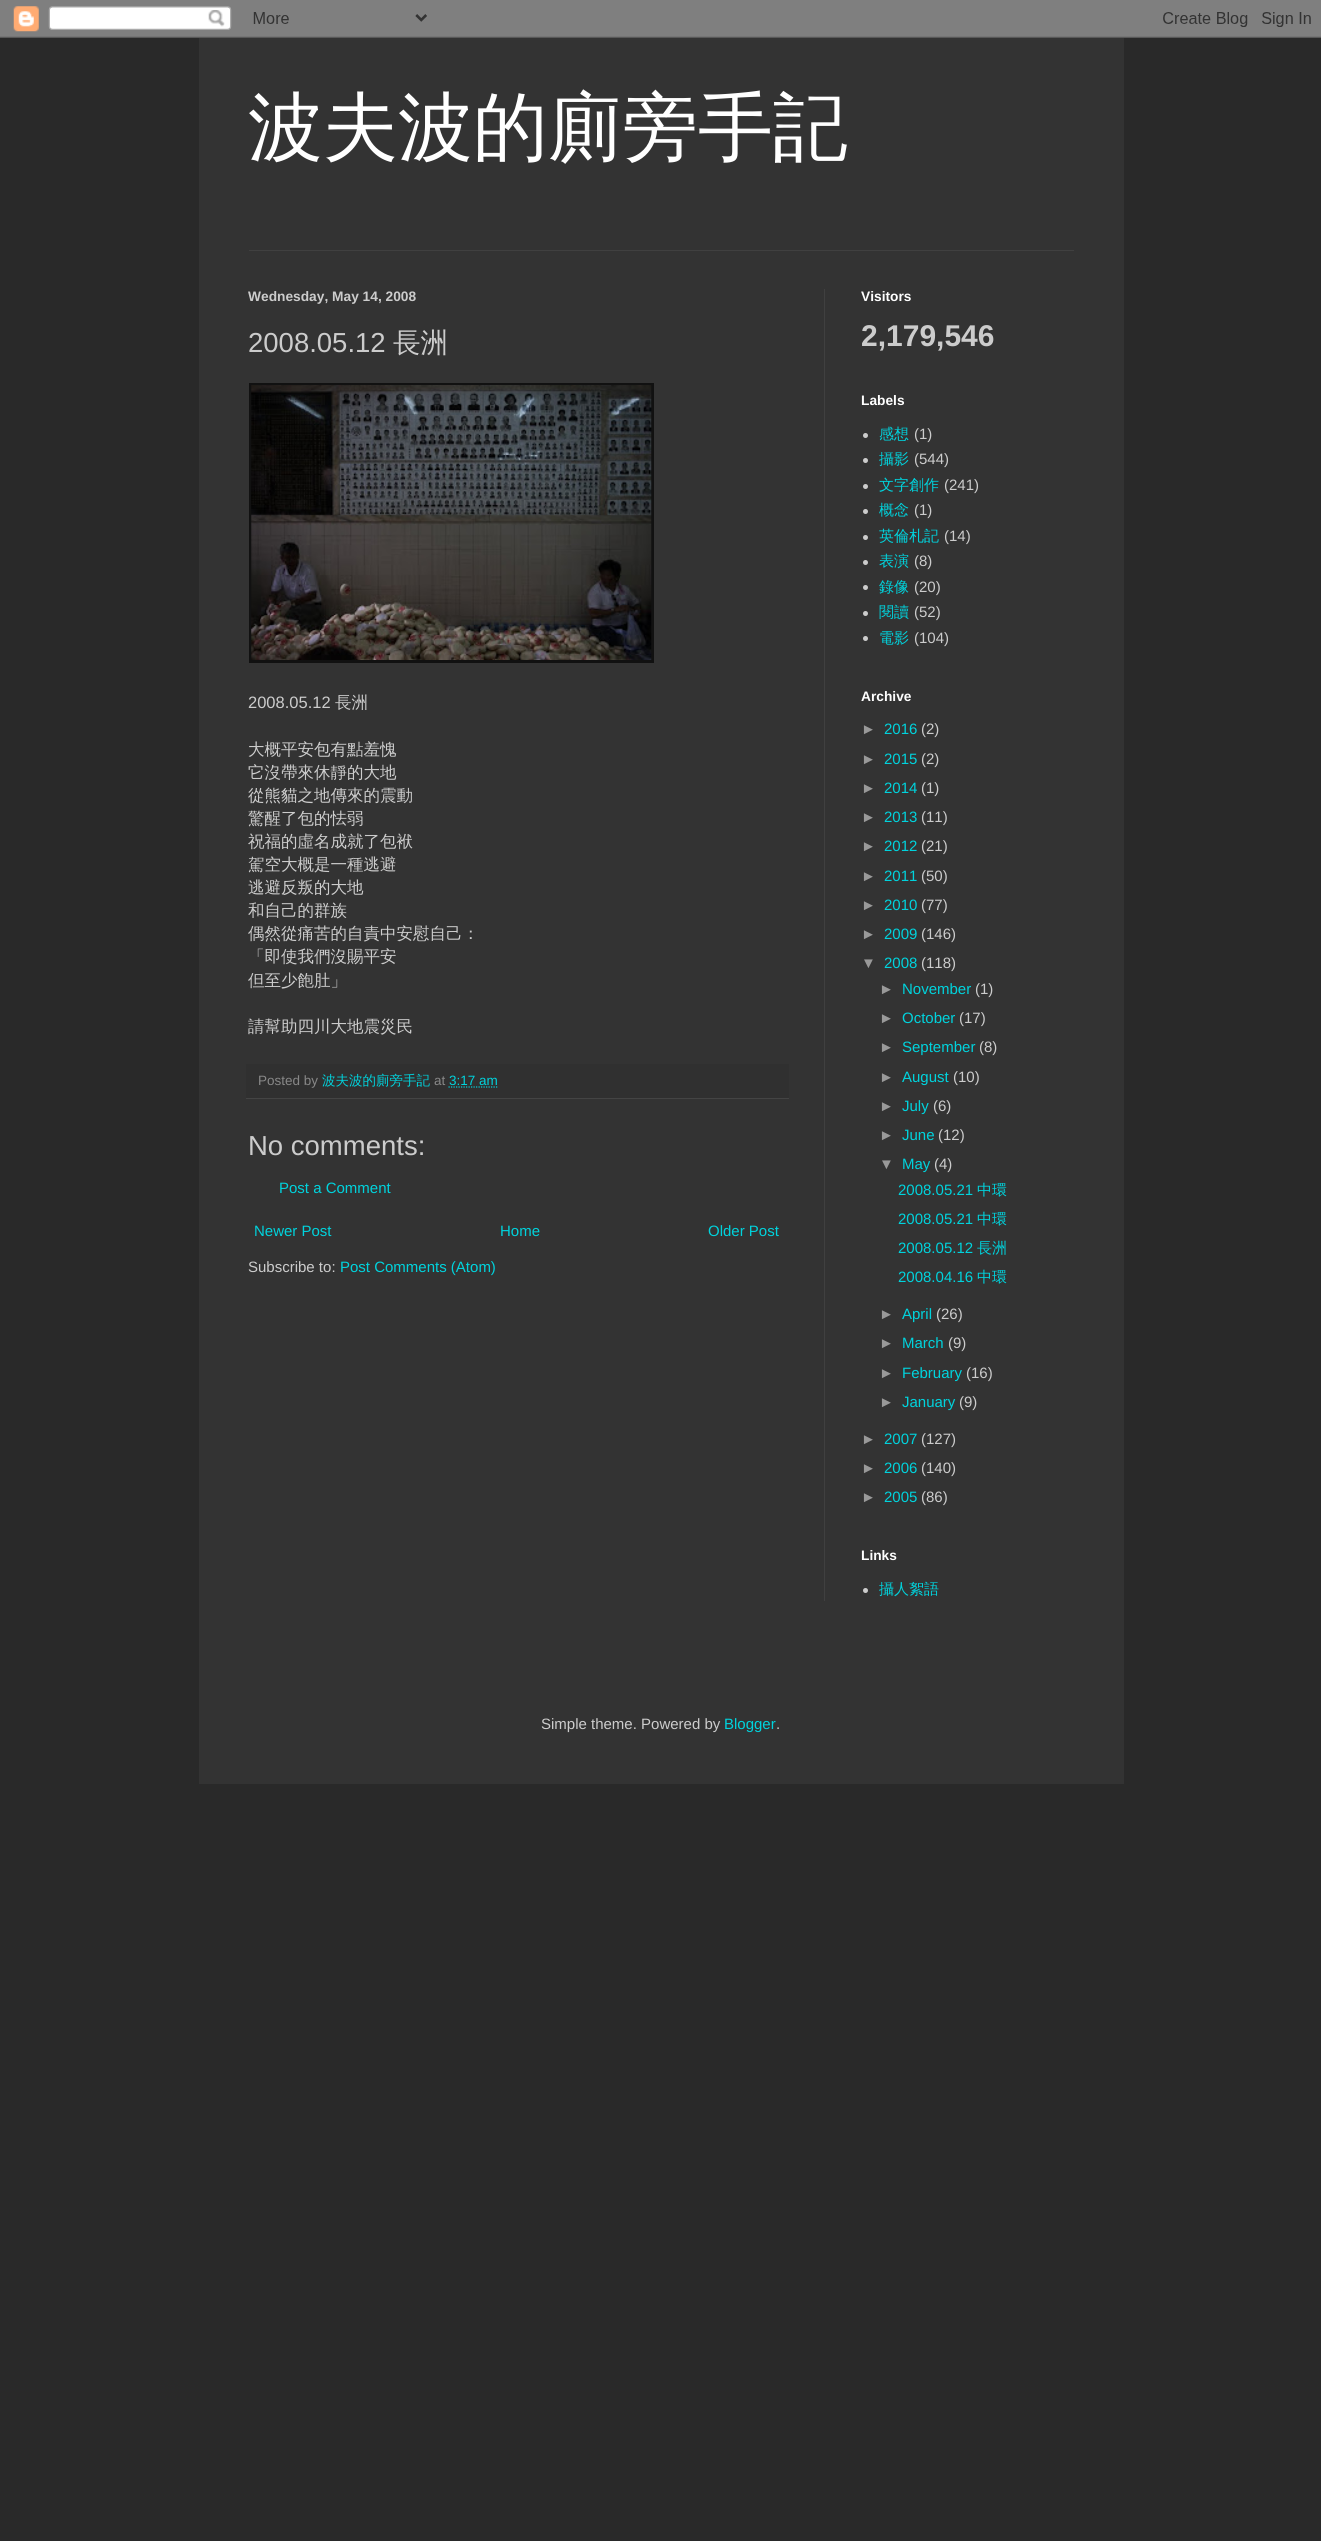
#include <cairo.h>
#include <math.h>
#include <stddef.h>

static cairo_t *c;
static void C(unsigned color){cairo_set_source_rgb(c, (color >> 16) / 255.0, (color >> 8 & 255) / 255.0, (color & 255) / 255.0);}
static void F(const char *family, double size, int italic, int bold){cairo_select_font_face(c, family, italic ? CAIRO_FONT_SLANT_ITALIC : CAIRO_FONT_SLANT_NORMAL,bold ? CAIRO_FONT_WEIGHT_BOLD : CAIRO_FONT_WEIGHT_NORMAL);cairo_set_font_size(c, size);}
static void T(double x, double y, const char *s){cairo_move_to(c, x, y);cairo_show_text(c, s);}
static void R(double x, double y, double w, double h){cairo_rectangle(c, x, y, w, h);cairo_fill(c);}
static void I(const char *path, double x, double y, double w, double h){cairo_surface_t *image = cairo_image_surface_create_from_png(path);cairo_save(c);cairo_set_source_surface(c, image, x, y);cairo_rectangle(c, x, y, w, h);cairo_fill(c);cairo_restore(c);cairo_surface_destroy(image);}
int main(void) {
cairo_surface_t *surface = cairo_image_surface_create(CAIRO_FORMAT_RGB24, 1321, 2541);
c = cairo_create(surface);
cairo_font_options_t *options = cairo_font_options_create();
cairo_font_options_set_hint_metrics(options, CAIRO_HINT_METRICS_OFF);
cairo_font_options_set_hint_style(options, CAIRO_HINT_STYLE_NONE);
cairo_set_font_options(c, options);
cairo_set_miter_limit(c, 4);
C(0x292929);
cairo_paint(c);
I("1.png",0,0,1321,38);
C(0x333333);
R(199,38,925,1746);
F("WenQuanYi Zen Hei Medium",75,0,0);
C(0xffffff);
T(248,153,"波夫波的廁旁手記");
C(0x404040);
R(249,250,825,1);
R(824,289,1,1312);
F("Liberation Sans",13.75,0,1);
C(0xcccccc);
T(248,301,"Wednesday, May 14, 2008");
F("Liberation Sans",27.5,0,0);
T(248,352,"2008.05.12");
F("WenQuanYi Zen Hei Medium",27.5,0,0);
T(393,352,"長洲");
C(0x111111);
R(249,383,405,280);
I("2.png",251,385,401,275);
F("Liberation Sans",16.5,0,0);
C(0xcccccc);
T(248,708,"2008.05.12");
F("WenQuanYi Zen Hei Medium",16.5,0,0);
T(335,708,"長洲");
T(248,755,"大概平安包有點羞愧");
T(248,778,"它沒帶來休靜的大地");
T(248,801,"從熊貓之地傳來的震動");
T(248,824,"驚醒了包的怯弱");
T(248,847,"祝福的虛名成就了包袱");
T(248,870,"駕空大概是一種逃避");
T(248,893,"逃避反叛的大地");
T(248,916,"和自己的群族");
T(248,939,"偶然從痛苦的自責中安慰自己：");
T(248,962,"「即使我們沒賜平安");
T(248,986,"但至少飽肚」");
T(248,1032,"請幫助四川大地震災民");
C(0x303030);
R(246,1064,543,34);
C(0x444444);
R(246,1098,543,1);
F("Liberation Sans",13.5,0,0);
C(0x888888);
T(258,1085,"Posted by");
F("WenQuanYi Zen Hei Medium",13.5,0,0);
C(0x00d3dd);
T(322,1085,"波夫波的廁旁手記");
F("Liberation Sans",13.5,0,0);
C(0x888888);
T(434,1085,"at");
C(0x00d3dd);
T(449,1085,"3:17 am");
cairo_new_path(c);
cairo_move_to(c,448.5,1087);
cairo_line_to(c,497.5,1087);
cairo_set_line_width(c,1.2);
cairo_set_dash(c,(double[]){1.25,1.25},2,0);
cairo_stroke(c);
F("Liberation Sans",27.5,0,0);
C(0xcccccc);
T(248,1155,"No comments:");
F("Liberation Sans",15,0,0);
C(0x00d3dd);
T(279,1193,"Post a Comment");
T(254,1236,"Newer Post");
T(500,1236,"Home");
T(708,1236,"Older Post");
C(0xcccccc);
T(248,1272,"Subscribe to:");
C(0x00d3dd);
T(340,1272,"Post Comments (Atom)");
F("Liberation Sans",13.75,0,1);
C(0xffffff);
T(861,301,"Visitors");
F("Liberation Sans",30,0,1);
C(0xcccccc);
T(861,346,"2,179,546");
F("Liberation Sans",13.75,0,1);
C(0xffffff);
T(861,405,"Labels");
C(0xcccccc);
cairo_new_path(c);
cairo_arc(c,865.5,435.5,2.5,0,2 * M_PI);
cairo_fill(c);
F("WenQuanYi Zen Hei Medium",15,0,0);
C(0x00d3dd);
T(879,439,"感想");
F("Liberation Sans",15,0,0);
C(0xcccccc);
T(914,439,"(1)");
cairo_new_path(c);
cairo_arc(c,865.5,460.5,2.5,0,2 * M_PI);
cairo_fill(c);
F("WenQuanYi Zen Hei Medium",15,0,0);
C(0x00d3dd);
T(879,464,"攝影");
F("Liberation Sans",15,0,0);
C(0xcccccc);
T(914,464,"(544)");
cairo_new_path(c);
cairo_arc(c,865.5,486.5,2.5,0,2 * M_PI);
cairo_fill(c);
F("WenQuanYi Zen Hei Medium",15,0,0);
C(0x00d3dd);
T(879,490,"文字創作");
F("Liberation Sans",15,0,0);
C(0xcccccc);
T(944,490,"(241)");
cairo_new_path(c);
cairo_arc(c,865.5,511.5,2.5,0,2 * M_PI);
cairo_fill(c);
F("WenQuanYi Zen Hei Medium",15,0,0);
C(0x00d3dd);
T(879,515,"概念");
F("Liberation Sans",15,0,0);
C(0xcccccc);
T(914,515,"(1)");
cairo_new_path(c);
cairo_arc(c,865.5,537.5,2.5,0,2 * M_PI);
cairo_fill(c);
F("WenQuanYi Zen Hei Medium",15,0,0);
C(0x00d3dd);
T(879,541,"英倫札記");
F("Liberation Sans",15,0,0);
C(0xcccccc);
T(944,541,"(14)");
cairo_new_path(c);
cairo_arc(c,865.5,562.5,2.5,0,2 * M_PI);
cairo_fill(c);
F("WenQuanYi Zen Hei Medium",15,0,0);
C(0x00d3dd);
T(879,566,"表演");
F("Liberation Sans",15,0,0);
C(0xcccccc);
T(914,566,"(8)");
cairo_new_path(c);
cairo_arc(c,865.5,587.5,2.5,0,2 * M_PI);
cairo_fill(c);
F("WenQuanYi Zen Hei Medium",15,0,0);
C(0x00d3dd);
T(879,592,"錄像");
F("Liberation Sans",15,0,0);
C(0xcccccc);
T(914,592,"(20)");
cairo_new_path(c);
cairo_arc(c,865.5,613.5,2.5,0,2 * M_PI);
cairo_fill(c);
F("WenQuanYi Zen Hei Medium",15,0,0);
C(0x00d3dd);
T(879,617,"閱讀");
F("Liberation Sans",15,0,0);
C(0xcccccc);
T(914,617,"(52)");
cairo_new_path(c);
cairo_arc(c,865.5,638.5,2.5,0,2 * M_PI);
cairo_fill(c);
F("WenQuanYi Zen Hei Medium",15,0,0);
C(0x00d3dd);
T(879,643,"電影");
F("Liberation Sans",15,0,0);
C(0xcccccc);
T(914,643,"(104)");
F("Liberation Sans",13.75,0,1);
C(0xffffff);
T(861,701,"Archive");
F("Liberation Sans",15,0,0);
C(0x999999);
T(861,734,"►");
C(0x00d3dd);
T(884,734,"2016");
C(0xcccccc);
T(921,734,"(2)");
C(0x999999);
T(861,764,"►");
C(0x00d3dd);
T(884,764,"2015");
C(0xcccccc);
T(921,764,"(2)");
C(0x999999);
T(861,793,"►");
C(0x00d3dd);
T(884,793,"2014");
C(0xcccccc);
T(921,793,"(1)");
C(0x999999);
T(861,822,"►");
C(0x00d3dd);
T(884,822,"2013");
C(0xcccccc);
T(921,822,"(11)");
C(0x999999);
T(861,851,"►");
C(0x00d3dd);
T(884,851,"2012");
C(0xcccccc);
T(921,851,"(21)");
C(0x999999);
T(861,881,"►");
C(0x00d3dd);
T(884,881,"2011");
C(0xcccccc);
T(921,881,"(50)");
C(0x999999);
T(861,910,"►");
C(0x00d3dd);
T(884,910,"2010");
C(0xcccccc);
T(921,910,"(77)");
C(0x999999);
T(861,939,"►");
C(0x00d3dd);
T(884,939,"2009");
C(0xcccccc);
T(921,939,"(146)");
C(0x999999);
T(861,968,"▼");
C(0x00d3dd);
T(884,968,"2008");
C(0xcccccc);
T(921,968,"(118)");
C(0x999999);
T(879,994,"►");
C(0x00d3dd);
T(902,994,"November");
C(0xcccccc);
T(975,994,"(1)");
C(0x999999);
T(879,1023,"►");
C(0x00d3dd);
T(902,1023,"October");
C(0xcccccc);
T(959,1023,"(17)");
C(0x999999);
T(879,1052,"►");
C(0x00d3dd);
T(902,1052,"September");
C(0xcccccc);
T(979,1052,"(8)");
C(0x999999);
T(879,1082,"►");
C(0x00d3dd);
T(902,1082,"August");
C(0xcccccc);
T(953,1082,"(10)");
C(0x999999);
T(879,1111,"►");
C(0x00d3dd);
T(902,1111,"July");
C(0xcccccc);
T(933,1111,"(6)");
C(0x999999);
T(879,1140,"►");
C(0x00d3dd);
T(902,1140,"June");
C(0xcccccc);
T(938,1140,"(12)");
C(0x999999);
T(879,1169,"▼");
C(0x00d3dd);
T(902,1169,"May");
C(0xcccccc);
T(934,1169,"(4)");
C(0x00d3dd);
T(898,1195,"2008.05.21");
F("WenQuanYi Zen Hei Medium",15,0,0);
T(977,1195,"中環");
F("Liberation Sans",15,0,0);
T(898,1224,"2008.05.21");
F("WenQuanYi Zen Hei Medium",15,0,0);
T(977,1224,"中環");
F("Liberation Sans",15,0,0);
T(898,1253,"2008.05.12");
F("WenQuanYi Zen Hei Medium",15,0,0);
T(977,1253,"長洲");
F("Liberation Sans",15,0,0);
T(898,1282,"2008.04.16");
F("WenQuanYi Zen Hei Medium",15,0,0);
T(977,1282,"中環");
F("Liberation Sans",15,0,0);
C(0x999999);
T(879,1319,"►");
C(0x00d3dd);
T(902,1319,"April");
C(0xcccccc);
T(936,1319,"(26)");
C(0x999999);
T(879,1348,"►");
C(0x00d3dd);
T(902,1348,"March");
C(0xcccccc);
T(948,1348,"(9)");
C(0x999999);
T(879,1378,"►");
C(0x00d3dd);
T(902,1378,"February");
C(0xcccccc);
T(966,1378,"(16)");
C(0x999999);
T(879,1407,"►");
C(0x00d3dd);
T(902,1407,"January");
C(0xcccccc);
T(959,1407,"(9)");
C(0x999999);
T(861,1444,"►");
C(0x00d3dd);
T(884,1444,"2007");
C(0xcccccc);
T(921,1444,"(127)");
C(0x999999);
T(861,1473,"►");
C(0x00d3dd);
T(884,1473,"2006");
C(0xcccccc);
T(921,1473,"(140)");
C(0x999999);
T(861,1502,"►");
C(0x00d3dd);
T(884,1502,"2005");
C(0xcccccc);
T(921,1502,"(86)");
F("Liberation Sans",13.75,0,1);
C(0xffffff);
T(861,1560,"Links");
C(0xcccccc);
cairo_new_path(c);
cairo_arc(c,865.5,1590.5,2.5,0,2 * M_PI);
cairo_fill(c);
F("WenQuanYi Zen Hei Medium",15,0,0);
C(0x00d3dd);
T(879,1594,"攝人絮語");
F("Liberation Sans",15,0,0);
C(0xcccccc);
T(541,1729,"Simple theme. Powered by");
C(0x00d3dd);
T(724,1729,"Blogger");
C(0xcccccc);
T(776,1729,".");
cairo_surface_write_to_png(surface, "o.png");
cairo_font_options_destroy(options);
cairo_destroy(c);
cairo_surface_destroy(surface);
return 0;
}
